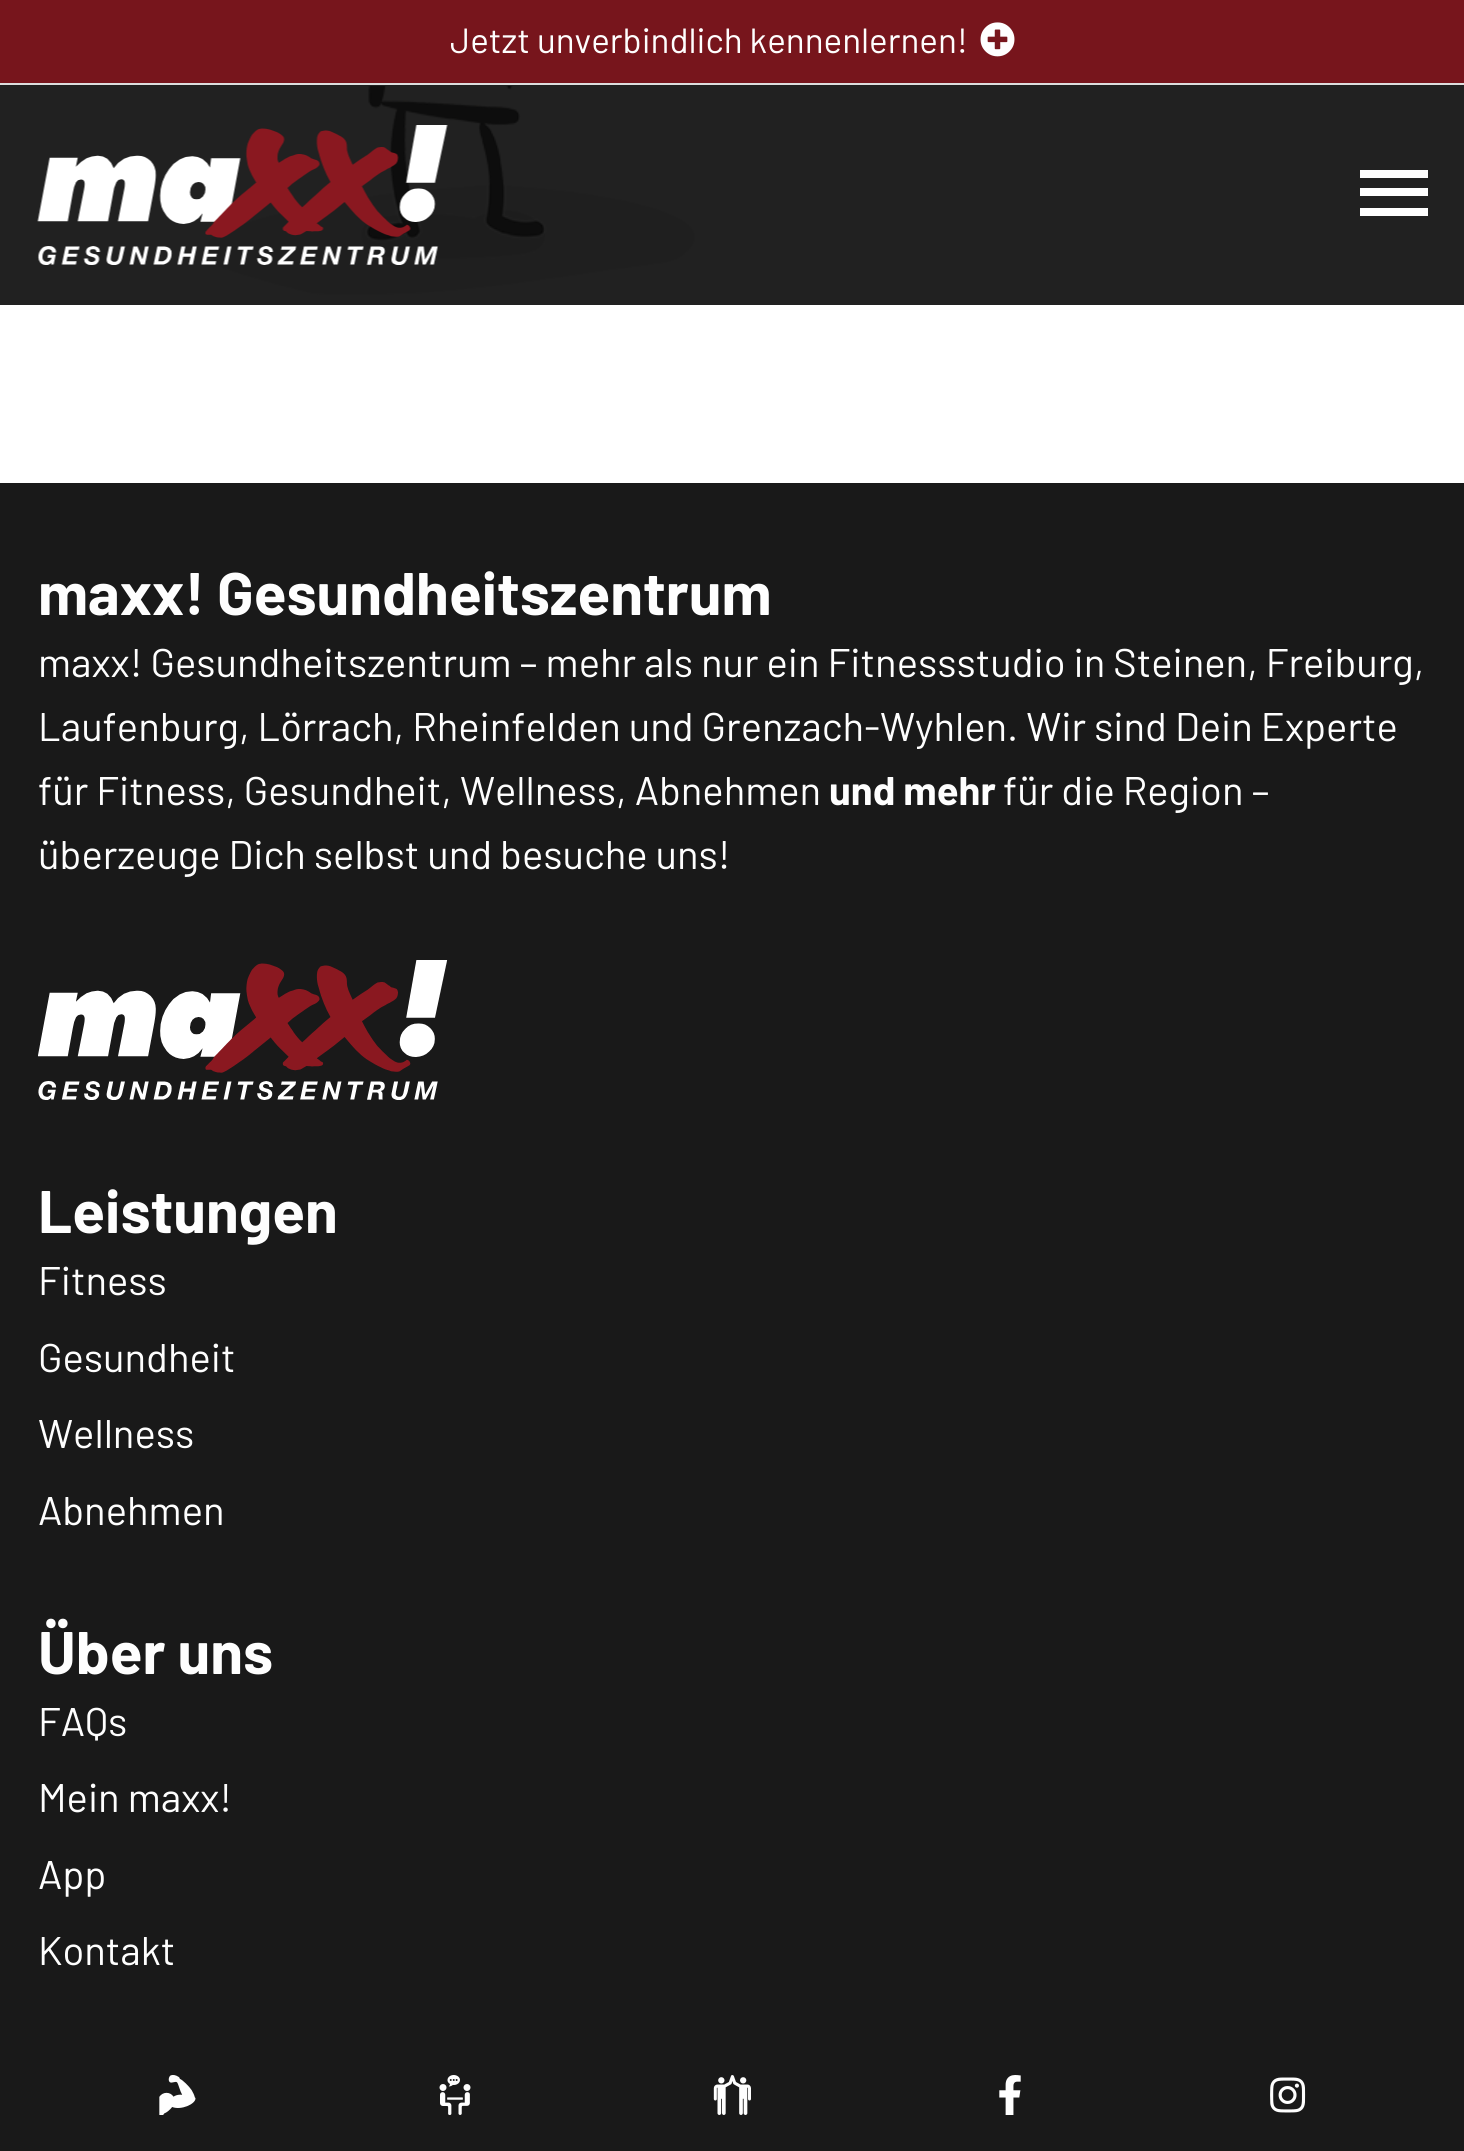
#include <cairo.h>
#include <math.h>
#include <stddef.h>

static cairo_t *c;
static void C(unsigned color){cairo_set_source_rgb(c, (color >> 16) / 255.0, (color >> 8 & 255) / 255.0, (color & 255) / 255.0);}
static void F(const char *family, double size, int italic, int bold){cairo_select_font_face(c, family, italic ? CAIRO_FONT_SLANT_ITALIC : CAIRO_FONT_SLANT_NORMAL,bold ? CAIRO_FONT_WEIGHT_BOLD : CAIRO_FONT_WEIGHT_NORMAL);cairo_set_font_size(c, size);}
static void T(double x, double y, const char *s){cairo_move_to(c, x, y);cairo_show_text(c, s);}
static void R(double x, double y, double w, double h){cairo_rectangle(c, x, y, w, h);cairo_fill(c);}
static void I(const char *path, double x, double y, double w, double h){cairo_surface_t *image = cairo_image_surface_create_from_png(path);cairo_save(c);cairo_set_source_surface(c, image, x, y);cairo_rectangle(c, x, y, w, h);cairo_fill(c);cairo_restore(c);cairo_surface_destroy(image);}
int main(void) {
cairo_surface_t *surface = cairo_image_surface_create(CAIRO_FORMAT_RGB24, 1464, 2151);
c = cairo_create(surface);
cairo_font_options_t *options = cairo_font_options_create();
cairo_font_options_set_hint_metrics(options, CAIRO_HINT_METRICS_OFF);
cairo_font_options_set_hint_style(options, CAIRO_HINT_STYLE_NONE);
cairo_set_font_options(c, options);
cairo_set_miter_limit(c, 4);
C(0xffffff);
cairo_paint(c);
C(0xdddddd);
R(0,83,1464,3);
C(0x77151c);
R(0,0,1464,83);
F("Barlow",35,0,0);
C(0xfefefe);
T(450,53,"Jetzt unverbindlich kennenlernen!");
I("1.png",980,22,35,35);
I("3.png",207,86,488,209);
cairo_set_source_rgba(c,0.039,0.039,0.039,0.9);
R(0,85,1464,220);
I("2.png",37,125,411,140);
C(0xfefefe);
R(1360,170,68,8);
R(1360,188,68,8);
R(1360,208,68,8);
C(0x191919);
R(0,483,1464,1668);
F("Barlow",60,0,1);
C(0xfefefe);
T(38,615,"maxx! Gesundheitszentrum");
F("Barlow",40,0,0);
T(38,677,"maxx! Gesundheitszentrum – mehr als nur ein Fitnessstudio in Steinen, Freiburg,");
T(38,741,"Laufenburg, Lörrach, Rheinfelden und Grenzach-Wyhlen. Wir sind Dein Experte");
T(38,805,"für Fitness, Gesundheit, Wellness, Abnehmen");
F("Barlow",40,0,1);
T(829,805,"und mehr");
F("Barlow",40,0,0);
T(1003,805,"für die Region –");
T(38,869,"überzeuge Dich selbst und besuche uns!");
I("4.png",38,960,410,140);
F("Barlow",60,0,1);
T(38,1233,"Leistungen");
F("Barlow",40,0,0);
T(38,1295,"Fitness");
T(38,1372,"Gesundheit");
T(38,1448,"Wellness");
T(38,1525,"Abnehmen");
F("Barlow",60,0,1);
T(38,1674,"Über uns");
F("Barlow",40,0,0);
T(38,1736,"FAQs");
T(38,1812,"Mein maxx!");
T(38,1889,"App");
T(38,1965,"Kontakt");
I("5.png",159,2075,37,40);
I("6.png",439,2075,32,40);
I("7.png",713,2075,38,40);
I("8.png",999,2075,22,40);
I("9.png",1270,2077,36,36);
cairo_surface_write_to_png(surface, "o.png");
cairo_font_options_destroy(options);
cairo_destroy(c);
cairo_surface_destroy(surface);
return 0;
}
